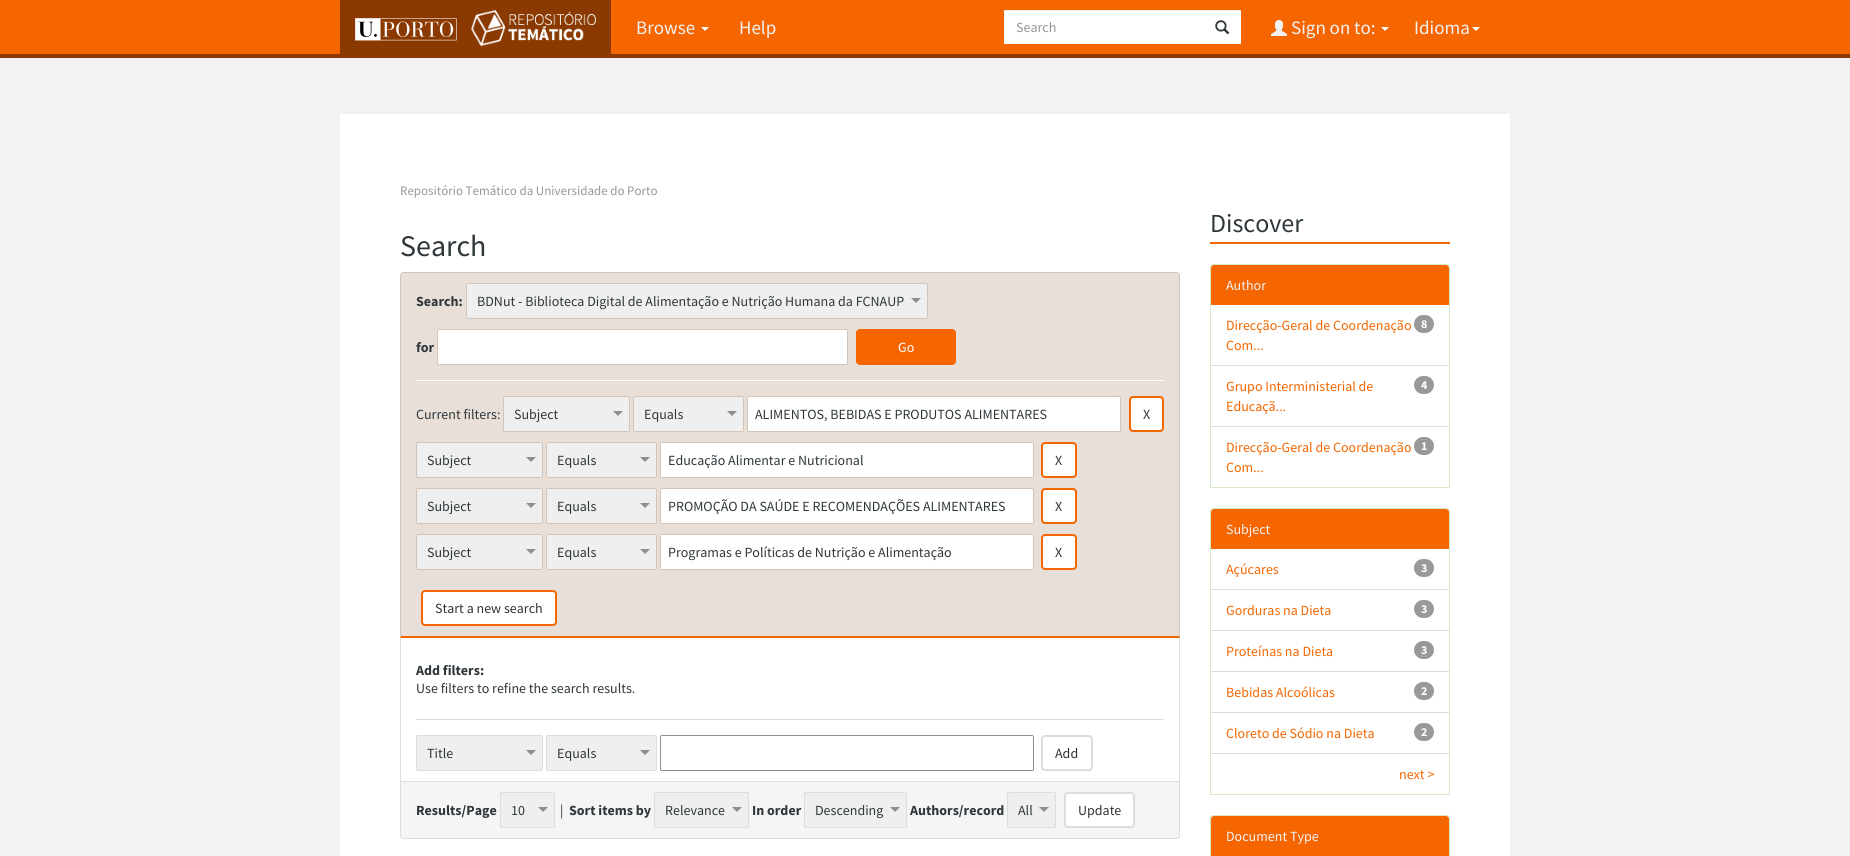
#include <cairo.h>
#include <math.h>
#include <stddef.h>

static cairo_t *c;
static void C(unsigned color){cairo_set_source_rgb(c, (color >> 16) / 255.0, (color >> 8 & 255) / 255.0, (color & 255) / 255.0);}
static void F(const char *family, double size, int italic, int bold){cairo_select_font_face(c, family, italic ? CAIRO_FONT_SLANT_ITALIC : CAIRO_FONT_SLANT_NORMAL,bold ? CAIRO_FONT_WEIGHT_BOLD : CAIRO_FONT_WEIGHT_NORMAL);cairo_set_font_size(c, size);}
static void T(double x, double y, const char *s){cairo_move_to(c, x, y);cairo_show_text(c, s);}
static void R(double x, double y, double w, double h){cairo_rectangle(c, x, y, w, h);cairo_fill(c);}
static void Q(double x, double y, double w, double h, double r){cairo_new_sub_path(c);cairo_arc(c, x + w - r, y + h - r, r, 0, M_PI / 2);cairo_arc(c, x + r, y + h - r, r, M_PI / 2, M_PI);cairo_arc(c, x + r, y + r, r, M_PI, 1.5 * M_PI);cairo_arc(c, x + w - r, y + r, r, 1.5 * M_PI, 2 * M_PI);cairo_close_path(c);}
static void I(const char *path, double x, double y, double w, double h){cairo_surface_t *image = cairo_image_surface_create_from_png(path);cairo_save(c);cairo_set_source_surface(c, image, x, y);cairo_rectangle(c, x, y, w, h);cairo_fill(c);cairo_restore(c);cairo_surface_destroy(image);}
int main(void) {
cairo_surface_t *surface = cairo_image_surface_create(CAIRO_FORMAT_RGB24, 1850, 856);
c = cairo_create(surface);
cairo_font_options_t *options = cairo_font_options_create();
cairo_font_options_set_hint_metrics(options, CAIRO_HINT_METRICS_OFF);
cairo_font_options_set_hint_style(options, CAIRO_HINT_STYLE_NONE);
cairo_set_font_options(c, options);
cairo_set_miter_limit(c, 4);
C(0xf2f2f2);
cairo_paint(c);
C(0xf56600);
R(0,0,1850,54);
C(0x8a3900);
R(0,54,1850,4);
R(340,0,271,54);
I("1.png",355,18,102,23);
I("2.png",471,10,125,36);
F("Source Sans Pro",19,0,0);
C(0xf2f2f2);
T(636,34,"Browse");
C(0xffffff);
cairo_new_path(c);
cairo_move_to(c,701,27);
cairo_line_to(c,709,27);
cairo_line_to(c,705,31);
cairo_close_path(c);
cairo_fill(c);
C(0xf2f2f2);
T(739,34,"Help");
C(0xffffff);
Q(1004,10,237,34,1);
cairo_fill(c);
cairo_set_source_rgba(c,0,0,0,0.07);
cairo_new_path(c);
cairo_move_to(c,1005,11);
cairo_line_to(c,1241,11);
cairo_line_to(c,1241,12);
cairo_curve_to(c,1241,11,1241,10,1240,10);
cairo_line_to(c,1004,10);
cairo_line_to(c,1004,12);
cairo_curve_to(c,1004,11,1004,11,1005,11);
cairo_close_path(c);
cairo_fill(c);
F("Source Sans Pro",14,0,0);
C(0x979797);
T(1016,32,"Search");
I("3.png",1215,20,15,15);
I("4.png",1271,20,16,16);
F("Source Sans Pro",19,0,0);
C(0xf2f2f2);
T(1291,34,"Sign on to:");
C(0xffffff);
cairo_new_path(c);
cairo_move_to(c,1381,27);
cairo_line_to(c,1389,27);
cairo_line_to(c,1385,31);
cairo_close_path(c);
cairo_fill(c);
C(0xf2f2f2);
T(1414,34,"Idioma");
C(0xffffff);
cairo_new_path(c);
cairo_move_to(c,1472,27);
cairo_line_to(c,1480,27);
cairo_line_to(c,1476,31);
cairo_close_path(c);
cairo_fill(c);
R(340,114,1170,742);
F("Source Sans Pro",13,0,0);
C(0x979797);
T(400,195,"Repositório Temático da Universidade do Porto");
F("Source Sans Pro",30,0,0);
C(0x2f373b);
T(400,256,"Search");
C(0xe8dfd8);
cairo_new_path(c);
cairo_move_to(c,403,273);
cairo_line_to(c,1177,273);
cairo_curve_to(c,1178,273,1179,274,1179,275);
cairo_line_to(c,1179,636);
cairo_line_to(c,401,636);
cairo_line_to(c,401,275);
cairo_curve_to(c,401,274,402,273,403,273);
cairo_close_path(c);
cairo_fill(c);
C(0xd5c5b8);
cairo_new_path(c);
cairo_move_to(c,403,272);
cairo_line_to(c,401,273);
cairo_line_to(c,402,274);
cairo_line_to(c,403,273);
cairo_line_to(c,1177,273);
cairo_line_to(c,1178,274);
cairo_line_to(c,1179,273);
cairo_line_to(c,1177,272);
cairo_close_path(c);
cairo_fill(c);
cairo_new_path(c);
cairo_move_to(c,1180,638);
cairo_line_to(c,1180,275);
cairo_line_to(c,1179,273);
cairo_line_to(c,1178,274);
cairo_line_to(c,1179,275);
cairo_line_to(c,1179,636);
cairo_close_path(c);
cairo_fill(c);
C(0xf56600);
cairo_new_path(c);
cairo_move_to(c,1180,638);
cairo_line_to(c,1179,636);
cairo_line_to(c,401,636);
cairo_line_to(c,400,638);
cairo_close_path(c);
cairo_fill(c);
C(0xd5c5b8);
cairo_new_path(c);
cairo_move_to(c,400,638);
cairo_line_to(c,401,636);
cairo_line_to(c,401,275);
cairo_line_to(c,402,274);
cairo_line_to(c,401,273);
cairo_line_to(c,400,275);
cairo_close_path(c);
cairo_fill(c);
F("Source Sans Pro",14,0,1);
C(0x2f373b);
T(416,306,"Search:");
C(0xefefef);
Q(466,283,462,36,2);
cairo_fill(c);
I("5.png",911,298,10,5);
Q(466.5,283.5,461,35,1.5);
C(0xd5c5b8);
cairo_set_line_width(c,1);
cairo_stroke(c);
F("Source Sans Pro",14,0,0);
C(0x2f373b);
T(477,306,"BDNut - Biblioteca Digital de Alimentação e Nutrição Humana da FCNAUP");
F("Source Sans Pro",14,0,1);
T(416,352,"for");
C(0xffffff);
Q(437.5,329.5,410,35,1.5);
cairo_fill_preserve(c);
C(0xd5c5b8);
cairo_stroke(c);
C(0xf56600);
Q(857,330,98,34,3);
cairo_fill_preserve(c);
cairo_set_line_width(c,2);
cairo_stroke(c);
F("Source Sans Pro",14,0,0);
C(0xffffff);
T(898,352,"Go");
R(416,380,748,1);
C(0x2f373b);
T(416,419,"Current filters:");
C(0xefefef);
Q(503,396,127,36,2);
cairo_fill(c);
I("5.png",613,411,10,5);
Q(503.5,396.5,126,35,1.5);
C(0xd5c5b8);
cairo_set_line_width(c,1);
cairo_stroke(c);
C(0x2f373b);
T(514,419,"Subject");
C(0xefefef);
Q(633,396,111,36,2);
cairo_fill(c);
I("5.png",727,411,10,5);
Q(633.5,396.5,110,35,1.5);
C(0xd5c5b8);
cairo_stroke(c);
C(0x2f373b);
T(644,419,"Equals");
C(0xffffff);
Q(747.5,396.5,373,35,1.5);
cairo_fill_preserve(c);
C(0xd5c5b8);
cairo_stroke(c);
C(0x2f373b);
T(755,419,"ALIMENTOS, BEBIDAS E PRODUTOS ALIMENTARES");
C(0xffffff);
Q(1130,397,33,34,3);
cairo_fill_preserve(c);
C(0xf56600);
cairo_set_line_width(c,2);
cairo_stroke(c);
C(0x333333);
T(1143,419,"X");
C(0xefefef);
Q(416,442,127,36,2);
cairo_fill(c);
I("5.png",526,457,10,5);
Q(416.5,442.5,126,35,1.5);
C(0xd5c5b8);
cairo_set_line_width(c,1);
cairo_stroke(c);
C(0x2f373b);
T(427,465,"Subject");
C(0xefefef);
Q(546,442,111,36,2);
cairo_fill(c);
I("5.png",640,457,10,5);
Q(546.5,442.5,110,35,1.5);
C(0xd5c5b8);
cairo_stroke(c);
C(0x2f373b);
T(557,465,"Equals");
C(0xffffff);
Q(660.5,442.5,373,35,1.5);
cairo_fill_preserve(c);
C(0xd5c5b8);
cairo_stroke(c);
C(0x2f373b);
T(668,465,"Educação Alimentar e Nutricional");
C(0xffffff);
Q(1042,443,34,34,3);
cairo_fill_preserve(c);
C(0xf56600);
cairo_set_line_width(c,2);
cairo_stroke(c);
C(0x333333);
T(1055,465,"X");
C(0xefefef);
Q(416,488,127,36,2);
cairo_fill(c);
I("5.png",526,503,10,5);
Q(416.5,488.5,126,35,1.5);
C(0xd5c5b8);
cairo_set_line_width(c,1);
cairo_stroke(c);
C(0x2f373b);
T(427,511,"Subject");
C(0xefefef);
Q(546,488,111,36,2);
cairo_fill(c);
I("5.png",640,503,10,5);
Q(546.5,488.5,110,35,1.5);
C(0xd5c5b8);
cairo_stroke(c);
C(0x2f373b);
T(557,511,"Equals");
C(0xffffff);
Q(660.5,488.5,373,35,1.5);
cairo_fill_preserve(c);
C(0xd5c5b8);
cairo_stroke(c);
C(0x2f373b);
T(668,511,"PROMOÇÃO DA SAÚDE E RECOMENDAÇÕES ALIMENTARES");
C(0xffffff);
Q(1042,489,34,34,3);
cairo_fill_preserve(c);
C(0xf56600);
cairo_set_line_width(c,2);
cairo_stroke(c);
C(0x333333);
T(1055,511,"X");
C(0xefefef);
Q(416,534,127,36,2);
cairo_fill(c);
I("5.png",526,549,10,5);
Q(416.5,534.5,126,35,1.5);
C(0xd5c5b8);
cairo_set_line_width(c,1);
cairo_stroke(c);
C(0x2f373b);
T(427,557,"Subject");
C(0xefefef);
Q(546,534,111,36,2);
cairo_fill(c);
I("5.png",640,549,10,5);
Q(546.5,534.5,110,35,1.5);
C(0xd5c5b8);
cairo_stroke(c);
C(0x2f373b);
T(557,557,"Equals");
C(0xffffff);
Q(660.5,534.5,373,35,1.5);
cairo_fill_preserve(c);
C(0xd5c5b8);
cairo_stroke(c);
C(0x2f373b);
T(668,557,"Programas e Políticas de Nutrição e Alimentação");
C(0xffffff);
Q(1042,535,34,34,3);
cairo_fill_preserve(c);
C(0xf56600);
cairo_set_line_width(c,2);
cairo_stroke(c);
C(0x333333);
T(1055,557,"X");
C(0xffffff);
Q(422,591,134,34,3);
cairo_fill_preserve(c);
C(0xf56600);
cairo_stroke(c);
C(0x333333);
T(435,613,"Start a new search");
C(0xdddddd);
R(1179,638,1,143);
R(400,638,1,143);
F("Source Sans Pro",14,0,1);
C(0x2f373b);
T(416,675,"Add filters:");
F("Source Sans Pro",14,0,0);
T(416,693,"Use filters to refine the search results.");
C(0xdddddd);
R(416,719,748,1);
C(0xefefef);
Q(416,735,127,36,2);
cairo_fill(c);
I("5.png",526,750,10,5);
Q(416.5,735.5,126,35,1.5);
C(0xdddddd);
cairo_set_line_width(c,1);
cairo_stroke(c);
C(0x2f373b);
T(427,758,"Title");
C(0xefefef);
Q(546,735,111,36,2);
cairo_fill(c);
I("5.png",640,750,10,5);
Q(546.5,735.5,110,35,1.5);
C(0xdddddd);
cairo_stroke(c);
C(0x2f373b);
T(557,758,"Equals");
Q(660.5,735.5,373,35,1.5);
C(0x8e8e8e);
cairo_stroke(c);
Q(1042,736,50,34,3);
C(0xdddddd);
cairo_set_line_width(c,2);
cairo_stroke(c);
C(0x333333);
T(1055,758,"Add");
C(0xf5f5f5);
cairo_new_path(c);
cairo_move_to(c,400.5,781.5);
cairo_line_to(c,1179.5,781.5);
cairo_line_to(c,1179.5,836);
cairo_curve_to(c,1179.5,837.5,1178.5,838.5,1177,838.5);
cairo_line_to(c,403,838.5);
cairo_curve_to(c,401.5,838.5,400.5,837.5,400.5,836);
cairo_close_path(c);
cairo_fill_preserve(c);
C(0xdddddd);
cairo_set_line_width(c,1);
cairo_stroke(c);
F("Source Sans Pro",14,0,1);
C(0x2f373b);
T(416,815,"Results/Page");
C(0xefefef);
Q(500,792,55,36,2);
cairo_fill(c);
I("5.png",538,807,10,5);
Q(500.5,792.5,54,35,1.5);
C(0xdddddd);
cairo_stroke(c);
F("Source Sans Pro",14,0,0);
C(0x2f373b);
T(511,815,"10");
T(560,815,"|");
F("Source Sans Pro",14,0,1);
T(569,815,"Sort items by");
C(0xefefef);
Q(654,792,95,36,2);
cairo_fill(c);
I("5.png",732,807,10,5);
Q(654.5,792.5,94,35,1.5);
C(0xdddddd);
cairo_stroke(c);
F("Source Sans Pro",14,0,0);
C(0x2f373b);
T(665,815,"Relevance");
F("Source Sans Pro",14,0,1);
T(752,815,"In order");
C(0xefefef);
Q(804,792,103,36,2);
cairo_fill(c);
I("5.png",890,807,10,5);
Q(804.5,792.5,102,35,1.5);
C(0xdddddd);
cairo_stroke(c);
F("Source Sans Pro",14,0,0);
C(0x2f373b);
T(815,815,"Descending");
F("Source Sans Pro",14,0,1);
T(910,815,"Authors/record");
C(0xefefef);
Q(1007,792,49,36,2);
cairo_fill(c);
I("5.png",1039,807,10,5);
Q(1007.5,792.5,48,35,1.5);
C(0xdddddd);
cairo_stroke(c);
F("Source Sans Pro",14,0,0);
C(0x2f373b);
T(1018,815,"All");
C(0xffffff);
Q(1065,793,69,34,3);
cairo_fill_preserve(c);
C(0xdddddd);
cairo_set_line_width(c,2);
cairo_stroke(c);
C(0x333333);
T(1078,815,"Update");
C(0xf56600);
R(1210,242,240,2);
F("Source Sans Pro",26,0,0);
C(0x2f373b);
T(1210,232,"Discover");
cairo_new_path(c);
cairo_move_to(c,1213,264.5);
cairo_line_to(c,1447,264.5);
cairo_curve_to(c,1448.5,264.5,1449.5,265.5,1449.5,267);
cairo_line_to(c,1449.5,487.5);
cairo_line_to(c,1210.5,487.5);
cairo_line_to(c,1210.5,267);
cairo_curve_to(c,1210.5,265.5,1211.5,264.5,1213,264.5);
cairo_close_path(c);
C(0xd6e9c6);
cairo_set_line_width(c,1);
cairo_stroke(c);
C(0xf56600);
cairo_new_path(c);
cairo_move_to(c,1214,265);
cairo_line_to(c,1446,265);
cairo_curve_to(c,1447.5,265,1449,266.5,1449,268);
cairo_line_to(c,1449,305);
cairo_line_to(c,1211,305);
cairo_line_to(c,1211,268);
cairo_curve_to(c,1211,266.5,1212.5,265,1214,265);
cairo_close_path(c);
cairo_fill(c);
F("Source Sans Pro",14,0,0);
C(0xf2f2f2);
T(1226,290,"Author");
C(0xdddddd);
R(1211,365,238,1);
C(0xf56600);
T(1226,330,"Direcção-Geral de Coordenação");
C(0x999999);
Q(1414,315,20,18,9);
cairo_fill(c);
F("Source Sans Pro",12,0,1);
C(0xffffff);
T(1421,328,"8");
F("Source Sans Pro",14,0,0);
C(0xf56600);
T(1226,350,"Com...");
T(1226,391,"Grupo Interministerial de");
C(0x999999);
Q(1414,376,20,18,9);
cairo_fill(c);
F("Source Sans Pro",12,0,1);
C(0xffffff);
T(1421,389,"4");
F("Source Sans Pro",14,0,0);
C(0xf56600);
T(1226,411,"Educaçã...");
C(0xdddddd);
R(1211,426,238,1);
C(0xf56600);
T(1226,452,"Direcção-Geral de Coordenação");
C(0x999999);
Q(1414,437,20,18,9);
cairo_fill(c);
F("Source Sans Pro",12,0,1);
C(0xffffff);
T(1421,450,"1");
F("Source Sans Pro",14,0,0);
C(0xf56600);
T(1226,472,"Com...");
cairo_new_path(c);
cairo_move_to(c,1213,508.5);
cairo_line_to(c,1447,508.5);
cairo_curve_to(c,1448.5,508.5,1449.5,509.5,1449.5,511);
cairo_line_to(c,1449.5,794.5);
cairo_line_to(c,1210.5,794.5);
cairo_line_to(c,1210.5,511);
cairo_curve_to(c,1210.5,509.5,1211.5,508.5,1213,508.5);
cairo_close_path(c);
C(0xd6e9c6);
cairo_stroke(c);
C(0xf56600);
cairo_new_path(c);
cairo_move_to(c,1214,509);
cairo_line_to(c,1446,509);
cairo_curve_to(c,1447.5,509,1449,510.5,1449,512);
cairo_line_to(c,1449,549);
cairo_line_to(c,1211,549);
cairo_line_to(c,1211,512);
cairo_curve_to(c,1211,510.5,1212.5,509,1214,509);
cairo_close_path(c);
cairo_fill(c);
C(0xf2f2f2);
T(1226,534,"Subject");
C(0xdddddd);
R(1211,589,238,1);
C(0xf56600);
T(1226,574,"Açúcares");
C(0x999999);
Q(1414,559,20,18,9);
cairo_fill(c);
F("Source Sans Pro",12,0,1);
C(0xffffff);
T(1421,572,"3");
C(0xdddddd);
R(1211,630,238,1);
F("Source Sans Pro",14,0,0);
C(0xf56600);
T(1226,615,"Gorduras na Dieta");
C(0x999999);
Q(1414,600,20,18,9);
cairo_fill(c);
F("Source Sans Pro",12,0,1);
C(0xffffff);
T(1421,613,"3");
C(0xdddddd);
R(1211,671,238,1);
F("Source Sans Pro",14,0,0);
C(0xf56600);
T(1226,656,"Proteínas na Dieta");
C(0x999999);
Q(1414,641,20,18,9);
cairo_fill(c);
F("Source Sans Pro",12,0,1);
C(0xffffff);
T(1421,654,"3");
C(0xdddddd);
R(1211,712,238,1);
F("Source Sans Pro",14,0,0);
C(0xf56600);
T(1226,697,"Bebidas Alcoólicas");
C(0x999999);
Q(1414,682,20,18,9);
cairo_fill(c);
F("Source Sans Pro",12,0,1);
C(0xffffff);
T(1421,695,"2");
F("Source Sans Pro",14,0,0);
C(0xf56600);
T(1226,738,"Cloreto de Sódio na Dieta");
C(0x999999);
Q(1414,723,20,18,9);
cairo_fill(c);
F("Source Sans Pro",12,0,1);
C(0xffffff);
T(1421,736,"2");
C(0xdddddd);
R(1211,753,238,1);
F("Source Sans Pro",14,0,0);
C(0xf56600);
T(1399,779,"next >");
cairo_new_path(c);
cairo_move_to(c,1213,815.5);
cairo_line_to(c,1447,815.5);
cairo_curve_to(c,1448.5,815.5,1449.5,816.5,1449.5,818);
cairo_line_to(c,1449.5,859.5);
cairo_line_to(c,1210.5,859.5);
cairo_line_to(c,1210.5,818);
cairo_curve_to(c,1210.5,816.5,1211.5,815.5,1213,815.5);
cairo_close_path(c);
C(0xd6e9c6);
cairo_stroke(c);
C(0xf56600);
cairo_new_path(c);
cairo_move_to(c,1214,816);
cairo_line_to(c,1446,816);
cairo_curve_to(c,1447.5,816,1449,817.5,1449,819);
cairo_line_to(c,1449,856);
cairo_line_to(c,1211,856);
cairo_line_to(c,1211,819);
cairo_curve_to(c,1211,817.5,1212.5,816,1214,816);
cairo_close_path(c);
cairo_fill(c);
C(0xf2f2f2);
T(1226,841,"Document Type");
cairo_surface_write_to_png(surface, "o.png");
cairo_font_options_destroy(options);
cairo_destroy(c);
cairo_surface_destroy(surface);
return 0;
}
